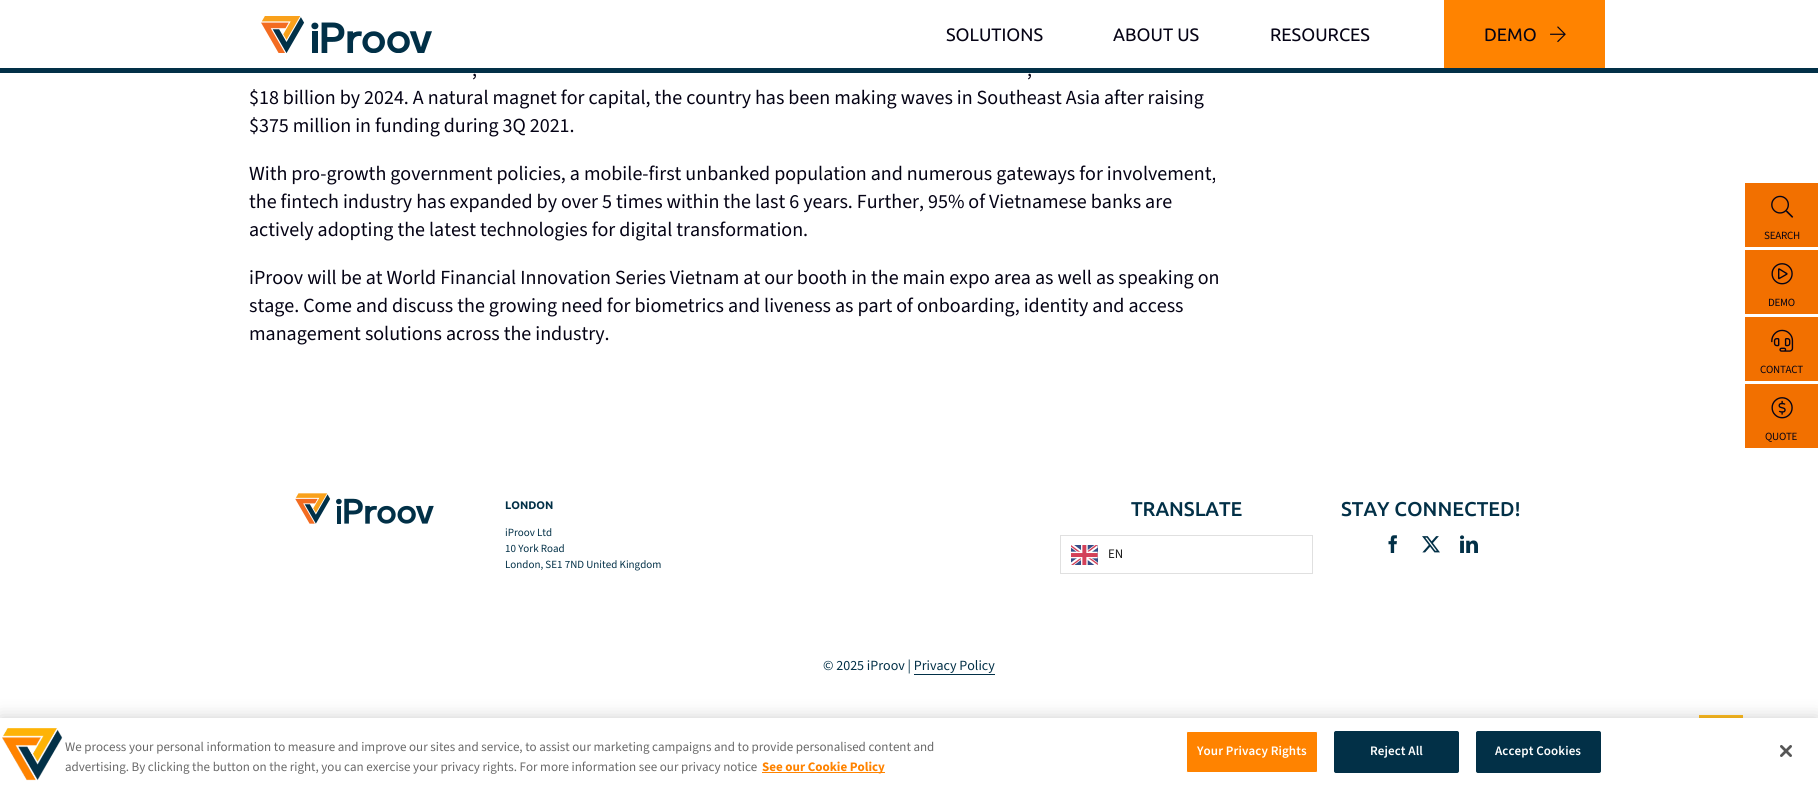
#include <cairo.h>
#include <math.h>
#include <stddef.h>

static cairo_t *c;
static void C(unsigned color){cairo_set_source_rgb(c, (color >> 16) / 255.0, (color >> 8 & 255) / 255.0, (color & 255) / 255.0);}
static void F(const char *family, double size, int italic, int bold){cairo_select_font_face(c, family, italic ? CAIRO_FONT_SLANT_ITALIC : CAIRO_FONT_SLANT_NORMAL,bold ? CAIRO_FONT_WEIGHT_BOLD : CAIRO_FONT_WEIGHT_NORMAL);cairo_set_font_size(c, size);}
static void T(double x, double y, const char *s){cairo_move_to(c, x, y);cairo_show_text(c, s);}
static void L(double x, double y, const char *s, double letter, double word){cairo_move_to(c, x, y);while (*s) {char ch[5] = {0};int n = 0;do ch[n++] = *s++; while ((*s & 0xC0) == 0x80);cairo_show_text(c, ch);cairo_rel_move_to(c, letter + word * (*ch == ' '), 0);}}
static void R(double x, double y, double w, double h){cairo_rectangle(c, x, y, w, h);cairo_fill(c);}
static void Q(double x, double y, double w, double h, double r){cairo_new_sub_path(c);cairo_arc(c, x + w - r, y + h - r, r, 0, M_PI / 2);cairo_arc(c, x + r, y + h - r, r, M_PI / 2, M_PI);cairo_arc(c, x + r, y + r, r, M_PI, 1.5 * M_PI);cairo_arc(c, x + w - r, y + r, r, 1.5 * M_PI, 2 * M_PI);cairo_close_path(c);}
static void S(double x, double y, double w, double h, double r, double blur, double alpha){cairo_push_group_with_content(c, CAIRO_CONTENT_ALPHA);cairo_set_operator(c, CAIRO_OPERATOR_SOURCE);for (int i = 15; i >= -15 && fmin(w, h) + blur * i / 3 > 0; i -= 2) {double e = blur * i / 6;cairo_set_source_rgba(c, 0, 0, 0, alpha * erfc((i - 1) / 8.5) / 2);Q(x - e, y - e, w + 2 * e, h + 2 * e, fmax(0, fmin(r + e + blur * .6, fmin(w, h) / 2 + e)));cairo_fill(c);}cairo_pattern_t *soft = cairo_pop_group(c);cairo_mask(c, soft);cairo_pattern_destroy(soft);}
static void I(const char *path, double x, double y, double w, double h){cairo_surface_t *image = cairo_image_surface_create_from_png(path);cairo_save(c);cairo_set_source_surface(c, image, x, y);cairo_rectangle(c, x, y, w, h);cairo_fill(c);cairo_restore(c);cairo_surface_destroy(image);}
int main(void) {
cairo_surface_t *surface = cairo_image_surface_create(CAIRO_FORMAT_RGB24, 1818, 789);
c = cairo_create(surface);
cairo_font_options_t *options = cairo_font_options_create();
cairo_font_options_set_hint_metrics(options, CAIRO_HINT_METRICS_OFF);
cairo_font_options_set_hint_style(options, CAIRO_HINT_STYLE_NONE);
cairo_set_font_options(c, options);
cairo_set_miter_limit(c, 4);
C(0xffffff);
cairo_paint(c);
C(0x023047);
R(0,68,1818,5);
I("1.png",261,16,171,37);
F("Ubuntu",18,0,0);
C(0x050315);
T(946,41,"SOLUTIONS");
T(1113,41,"ABOUT US");
T(1270,41,"RESOURCES");
C(0xff8300);
R(1444,0,161,68);
C(0x050315);
T(1484,41,"DEMO");
I("2.png",1550,26,16,17);
F("Source Sans 3",20,0,0);
T(472,76,",");
T(1027,76,",");
T(249,104,"$18 billion by 2024. A natural magnet for capital, the country has been making waves in Southeast Asia after raising");
T(249,132,"$375 million in funding during 3Q 2021.");
T(249,180,"With pro-growth government policies, a mobile-first unbanked population and numerous gateways for involvement,");
T(249,208,"the fintech industry has expanded by over 5 times within the last 6 years. Further, 95% of Vietnamese banks are");
T(249,236,"actively adopting the latest technologies for digital transformation.");
T(249,284,"iProov will be at World Financial Innovation Series Vietnam at our booth in the main expo area as well as speaking on");
T(249,312,"stage. Come and discuss the growing need for biometrics and liveness as part of onboarding, identity and access");
T(249,340,"management solutions across the industry.");
C(0xf27000);
R(1745,183,73,64);
I("3.png",1771,195,23,23);
F("Source Sans 3",11,0,0);
C(0x050315);
L(1764,239,"SEARCH",-.25,0);
C(0xf27000);
R(1745,250,73,64);
I("4.png",1771,263,22,22);
C(0x050315);
L(1768,306,"DEMO",-.25,0);
C(0xf27000);
R(1745,317,73,64);
I("5.png",1771,329,23,23);
C(0x050315);
L(1760,373,"CONTACT",-.25,0);
C(0xf27000);
R(1745,384,73,64);
I("6.png",1771,397,22,22);
C(0x050315);
L(1765,440,"QUOTE",-.25,0);
I("7.png",295,493,139,31);
F("Ubuntu",11,0,1);
C(0x023047);
T(505,509,"LONDON");
F("Source Sans 3",11,0,0);
T(505,536,"iProov Ltd");
T(505,552,"10 York Road");
T(505,568,"London, SE1 7ND United Kingdom");
F("Ubuntu Medium",20,0,0);
T(1131,516,"TRANSLATE");
cairo_rectangle(c,1060.5,535.5,252,38);
C(0xe0e0e0);
cairo_set_line_width(c,1);
cairo_stroke(c);
I("8.png",1071,545,27,20);
F("Source Sans 3",13,0,0);
C(0x1b1b1b);
T(1108,558,"EN");
F("Ubuntu Medium",20,0,0);
C(0x023047);
T(1341,516,"STAY CONNECTED!");
I("9.png",1388,535,9,18);
I("10.png",1422,536,18,17);
I("11.png",1460,535,18,18);
F("Source Sans 3",14,0,0);
T(823,670,"© 2025 iProov | Privacy Policy");
R(914,674,81,1);
C(0xfebb1f);
R(1699,715,44,3);
C(0x000000);
S(0,718,1818,71,0,9,.2);
C(0xffffff);
R(0,718,1818,71);
I("12.png",2,728,61,53);
F("Source Sans 3",13,0,0);
C(0x696969);
T(65,751,"We process your personal information to measure and improve our sites and service, to assist our marketing campaigns and to provide personalised content and");
T(65,771,"advertising. By clicking the button on the right, you can exercise your privacy rights. For more information see our privacy notice");
C(0xff8300);
R(762,772,123,1);
F("Source Sans 3",13,0,1);
T(762,771,"See our Cookie Policy");
Q(1186.5,731.5,131,41,1.5);
cairo_fill_preserve(c);
C(0xffffff);
cairo_stroke(c);
F("Source Sans 3 SemiBold",13,0,0);
L(1197,755,"Your Privacy Rights",.1,0);
C(0x023047);
Q(1334.5,731.5,124,41,1.5);
cairo_fill_preserve(c);
cairo_stroke(c);
C(0xffffff);
L(1370,755,"Reject All",.1,0);
C(0x023047);
Q(1476.5,731.5,124,41,1.5);
cairo_fill_preserve(c);
cairo_stroke(c);
C(0xffffff);
L(1495,755,"Accept Cookies",.1,0);
I("13.png",1780,745,12,12);
cairo_surface_write_to_png(surface, "o.png");
cairo_font_options_destroy(options);
cairo_destroy(c);
cairo_surface_destroy(surface);
return 0;
}
